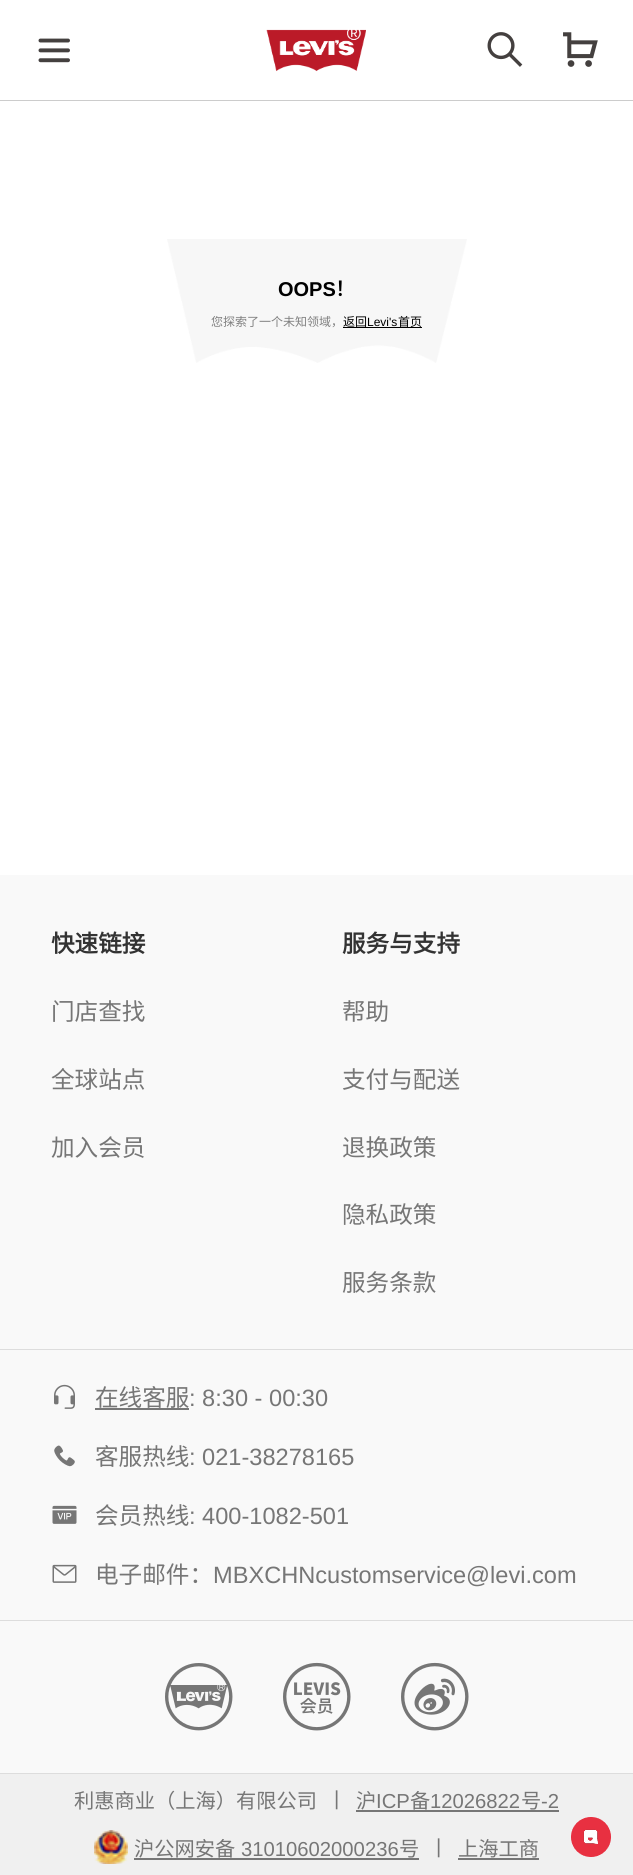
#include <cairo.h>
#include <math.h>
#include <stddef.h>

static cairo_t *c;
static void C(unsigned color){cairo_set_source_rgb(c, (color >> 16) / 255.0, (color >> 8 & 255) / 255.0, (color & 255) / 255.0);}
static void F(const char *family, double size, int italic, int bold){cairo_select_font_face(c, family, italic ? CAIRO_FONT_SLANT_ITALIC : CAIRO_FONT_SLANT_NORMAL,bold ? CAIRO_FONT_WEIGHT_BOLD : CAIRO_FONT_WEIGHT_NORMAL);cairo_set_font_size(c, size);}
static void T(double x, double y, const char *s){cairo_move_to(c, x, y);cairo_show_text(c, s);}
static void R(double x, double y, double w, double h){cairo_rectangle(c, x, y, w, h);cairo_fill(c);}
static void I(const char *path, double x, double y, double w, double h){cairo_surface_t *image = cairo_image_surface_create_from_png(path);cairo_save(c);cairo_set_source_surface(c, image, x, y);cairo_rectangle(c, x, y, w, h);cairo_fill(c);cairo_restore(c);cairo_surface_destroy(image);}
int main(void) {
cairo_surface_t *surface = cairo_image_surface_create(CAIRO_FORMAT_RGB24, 633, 1875);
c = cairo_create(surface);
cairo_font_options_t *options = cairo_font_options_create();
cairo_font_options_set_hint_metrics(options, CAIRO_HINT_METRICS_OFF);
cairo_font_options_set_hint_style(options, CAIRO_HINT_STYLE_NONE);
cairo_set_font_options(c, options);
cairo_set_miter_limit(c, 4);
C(0xffffff);
cairo_paint(c);
C(0xcccccc);
R(0,100,633,1);
I("1.png",38,38,32,25);
I("2.png",266,29,100,43);
I("3.png",487,32,36,35);
I("4.png",563,32,35,35);
I("5.png",167,239,300,124);
F("Liberation Sans",20,0,1);
C(0x000000);
T(278,296,"OOPS");
F("Noto Sans CJK SC",20,0,1);
T(335,296,"！");
F("Noto Sans CJK SC",12,0,0);
C(0x808080);
T(211,326,"您探索了一个未知领域，");
C(0x000000);
T(343,326,"返回");
F("Liberation Sans",12,0,0);
T(367,326,"Levi's");
R(343,327,79,1);
F("Noto Sans CJK SC",12,0,0);
T(398,326,"首页");
C(0xf9f9f9);
R(0,875,633,898);
F("Noto Sans CJK SC",23.6,0,1);
C(0x333333);
T(51,952,"快速链接");
F("Noto Sans CJK SC",23.6,0,0);
C(0x767676);
T(51,1020,"门店查找");
T(51,1088,"全球站点");
T(51,1156,"加入会员");
F("Noto Sans CJK SC",23.6,0,1);
C(0x333333);
T(342,952,"服务与支持");
F("Noto Sans CJK SC",23.6,0,0);
C(0x767676);
T(342,1020,"帮助");
T(342,1088,"支付与配送");
T(342,1156,"退换政策");
T(342,1223,"隐私政策");
T(342,1291,"服务条款");
C(0xdddddd);
R(0,1349,633,1);
R(0,1620,633,1);
I("6.png",54,1384,21,25);
C(0x767676);
T(95,1406,"在线客服");
R(95,1408,94,2);
F("Liberation Sans",23.6,0,0);
T(189,1406,": 8:30 - 00:30");
I("7.png",54,1445,21,22);
F("Noto Sans CJK SC",23.6,0,0);
T(95,1465,"客服热线");
F("Liberation Sans",23.6,0,0);
T(189,1465,": 021-38278165");
I("8.png",52,1505,25,19);
F("Noto Sans CJK SC",23.6,0,0);
T(95,1524,"会员热线");
F("Liberation Sans",23.6,0,0);
T(189,1524,": 400-1082-501");
I("9.png",52,1564,25,19);
F("Noto Sans CJK SC",23.6,0,0);
T(95,1583,"电子邮件：");
F("Liberation Sans",23.6,0,0);
T(213,1583,"MBXCHNcustomservice@levi.com");
I("10.png",165,1663,68,68);
I("11.png",283,1662,68,69);
I("12.png",401,1662,68,69);
C(0xf0f0f0);
R(0,1774,633,101);
C(0xdddddd);
R(0,1773,633,1);
F("Noto Sans CJK SC",20.25,0,0);
C(0x767676);
T(74,1808,"利惠商业（上海）有限公司");
F("Liberation Sans",20.25,0,0);
T(334,1805,"|");
F("Noto Sans CJK SC",20.25,0,0);
T(356,1808,"沪");
F("Liberation Sans",20.25,0,0);
T(376,1808,"ICP");
R(356,1810,203,2);
F("Noto Sans CJK SC",20.25,0,0);
T(410,1808,"备");
F("Liberation Sans",20.25,0,0);
T(430,1808,"12026822");
F("Noto Sans CJK SC",20.25,0,0);
T(521,1808,"号");
F("Liberation Sans",20.25,0,0);
T(541,1808,"-2");
I("13.png",94,1830,34,34);
F("Noto Sans CJK SC",20.25,0,0);
T(134,1856,"沪公网安备");
F("Liberation Sans",20.25,0,0);
T(241,1856,"31010602000236");
R(134,1858,285,2);
F("Noto Sans CJK SC",20.25,0,0);
T(399,1856,"号");
F("Liberation Sans",20.25,0,0);
T(436,1853,"|");
F("Noto Sans CJK SC",20.25,0,0);
T(458,1856,"上海工商");
R(458,1858,81,2);
I("14.png",571,1817,40,40);
cairo_surface_write_to_png(surface, "o.png");
cairo_font_options_destroy(options);
cairo_destroy(c);
cairo_surface_destroy(surface);
return 0;
}
